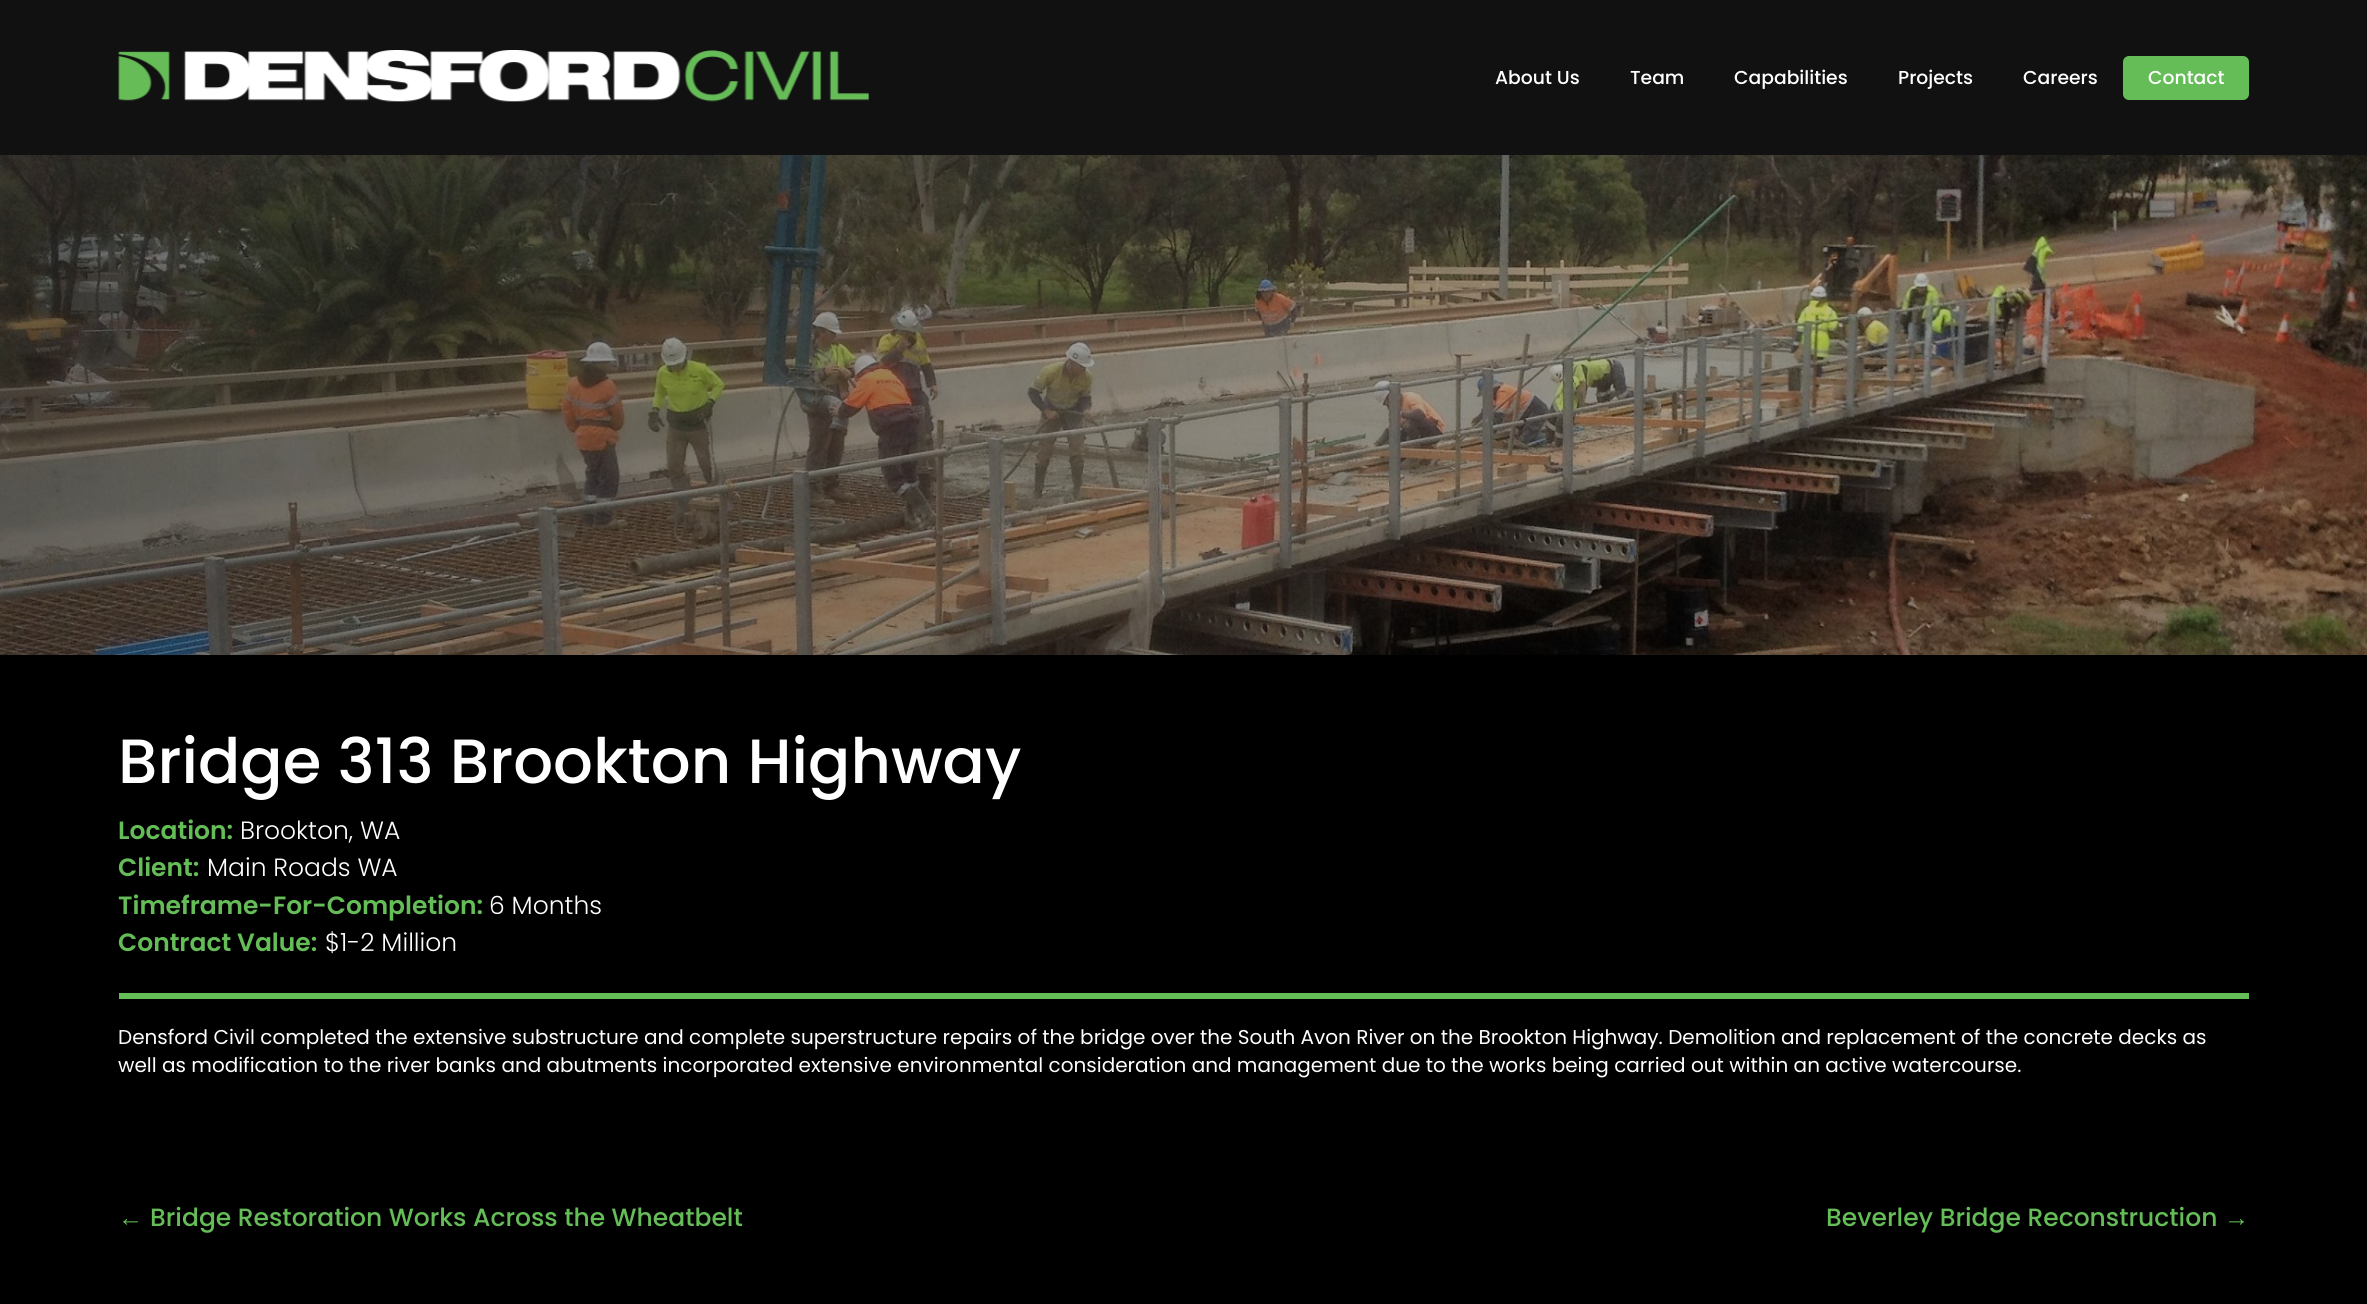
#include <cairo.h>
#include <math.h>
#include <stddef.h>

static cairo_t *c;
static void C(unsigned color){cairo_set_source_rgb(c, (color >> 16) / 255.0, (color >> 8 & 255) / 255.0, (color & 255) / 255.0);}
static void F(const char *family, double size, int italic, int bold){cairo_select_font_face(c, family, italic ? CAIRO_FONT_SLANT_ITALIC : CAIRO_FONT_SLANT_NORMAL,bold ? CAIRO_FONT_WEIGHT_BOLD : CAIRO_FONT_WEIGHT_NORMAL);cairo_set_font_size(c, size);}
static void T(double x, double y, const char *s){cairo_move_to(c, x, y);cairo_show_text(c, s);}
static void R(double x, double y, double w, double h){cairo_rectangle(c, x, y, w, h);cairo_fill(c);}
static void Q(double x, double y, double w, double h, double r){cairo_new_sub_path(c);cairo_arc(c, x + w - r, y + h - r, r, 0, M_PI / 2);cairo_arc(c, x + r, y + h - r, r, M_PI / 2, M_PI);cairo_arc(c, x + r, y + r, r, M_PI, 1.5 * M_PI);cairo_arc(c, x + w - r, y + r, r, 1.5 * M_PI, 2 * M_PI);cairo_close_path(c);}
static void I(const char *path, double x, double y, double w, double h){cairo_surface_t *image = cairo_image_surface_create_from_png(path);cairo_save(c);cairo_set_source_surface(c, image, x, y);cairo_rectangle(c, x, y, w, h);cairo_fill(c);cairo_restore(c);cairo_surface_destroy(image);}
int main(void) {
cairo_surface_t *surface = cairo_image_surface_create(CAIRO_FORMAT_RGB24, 2367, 1304);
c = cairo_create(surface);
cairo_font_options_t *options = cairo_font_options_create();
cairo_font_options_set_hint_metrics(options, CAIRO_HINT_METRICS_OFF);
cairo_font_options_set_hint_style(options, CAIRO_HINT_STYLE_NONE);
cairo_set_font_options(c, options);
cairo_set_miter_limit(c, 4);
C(0x000000);
cairo_paint(c);
C(0x111111);
R(0,0,2367,155);
I("1.png",118,50,751,52);
F("Poppins Medium",18.75,0,0);
C(0xffffff);
T(1495,84,"About Us");
T(1630,84,"Team");
T(1734,84,"Capabilities");
T(1898,84,"Projects");
T(2023,84,"Careers");
C(0x65bd57);
Q(2123,56,126,44,6);
cairo_fill(c);
C(0xffffff);
T(2148,84,"Contact");
I("2.png",0,155,2367,500);
F("Poppins Medium",62.5,0,0);
T(118,783,"Bridge 313 Brookton Highway");
C(0x65bd57);
R(119,993,2130,6);
F("Poppins SemiBold",25,0,0);
T(118,839,"Location:");
F("Poppins Light",25,0,0);
C(0xffffff);
T(240,839,"Brookton, WA");
F("Poppins SemiBold",25,0,0);
C(0x65bd57);
T(118,876,"Client:");
F("Poppins Light",25,0,0);
C(0xffffff);
T(207,876,"Main Roads WA");
F("Poppins SemiBold",25,0,0);
C(0x65bd57);
T(118,914,"Timeframe-For-Completion:");
F("Poppins Light",25,0,0);
C(0xffffff);
T(489,914,"6 Months");
F("Poppins SemiBold",25,0,0);
C(0x65bd57);
T(118,951,"Contract Value:");
F("Poppins Light",25,0,0);
C(0xffffff);
T(325,951,"$1-2 Million");
F("Poppins",20,0,0);
T(118,1044,"Densford Civil completed the extensive substructure and complete superstructure repairs of the bridge over the South Avon River on the Brookton Highway. Demolition and replacement of the concrete decks as");
T(118,1072,"well as modification to the river banks and abutments incorporated extensive environmental consideration and management due to the works being carried out within an active watercourse.");
F("Liberation Sans",25,0,0);
C(0x65bd57);
T(118,1226,"←");
F("Poppins Medium",25,0,0);
T(150,1226,"Bridge Restoration Works Across the Wheatbelt");
T(1826,1226,"Beverley Bridge Reconstruction");
F("Liberation Sans",25,0,0);
T(2224,1226,"→");
cairo_surface_write_to_png(surface, "o.png");
cairo_font_options_destroy(options);
cairo_destroy(c);
cairo_surface_destroy(surface);
return 0;
}
